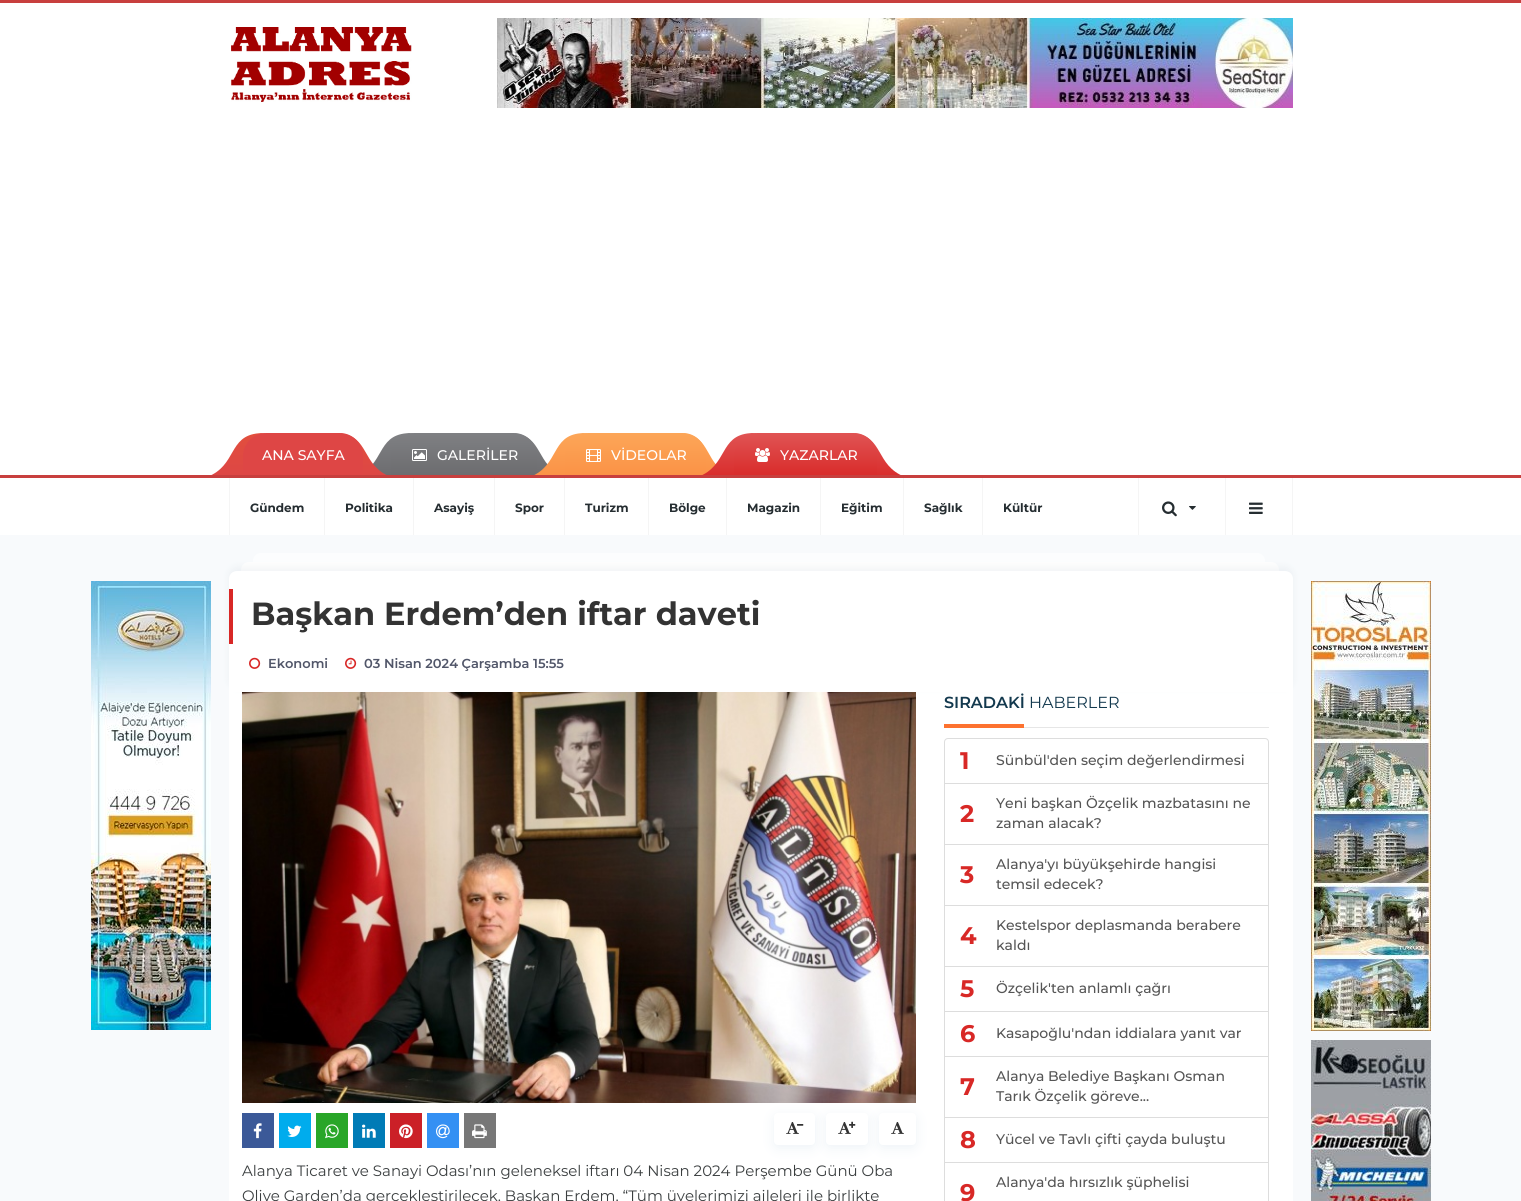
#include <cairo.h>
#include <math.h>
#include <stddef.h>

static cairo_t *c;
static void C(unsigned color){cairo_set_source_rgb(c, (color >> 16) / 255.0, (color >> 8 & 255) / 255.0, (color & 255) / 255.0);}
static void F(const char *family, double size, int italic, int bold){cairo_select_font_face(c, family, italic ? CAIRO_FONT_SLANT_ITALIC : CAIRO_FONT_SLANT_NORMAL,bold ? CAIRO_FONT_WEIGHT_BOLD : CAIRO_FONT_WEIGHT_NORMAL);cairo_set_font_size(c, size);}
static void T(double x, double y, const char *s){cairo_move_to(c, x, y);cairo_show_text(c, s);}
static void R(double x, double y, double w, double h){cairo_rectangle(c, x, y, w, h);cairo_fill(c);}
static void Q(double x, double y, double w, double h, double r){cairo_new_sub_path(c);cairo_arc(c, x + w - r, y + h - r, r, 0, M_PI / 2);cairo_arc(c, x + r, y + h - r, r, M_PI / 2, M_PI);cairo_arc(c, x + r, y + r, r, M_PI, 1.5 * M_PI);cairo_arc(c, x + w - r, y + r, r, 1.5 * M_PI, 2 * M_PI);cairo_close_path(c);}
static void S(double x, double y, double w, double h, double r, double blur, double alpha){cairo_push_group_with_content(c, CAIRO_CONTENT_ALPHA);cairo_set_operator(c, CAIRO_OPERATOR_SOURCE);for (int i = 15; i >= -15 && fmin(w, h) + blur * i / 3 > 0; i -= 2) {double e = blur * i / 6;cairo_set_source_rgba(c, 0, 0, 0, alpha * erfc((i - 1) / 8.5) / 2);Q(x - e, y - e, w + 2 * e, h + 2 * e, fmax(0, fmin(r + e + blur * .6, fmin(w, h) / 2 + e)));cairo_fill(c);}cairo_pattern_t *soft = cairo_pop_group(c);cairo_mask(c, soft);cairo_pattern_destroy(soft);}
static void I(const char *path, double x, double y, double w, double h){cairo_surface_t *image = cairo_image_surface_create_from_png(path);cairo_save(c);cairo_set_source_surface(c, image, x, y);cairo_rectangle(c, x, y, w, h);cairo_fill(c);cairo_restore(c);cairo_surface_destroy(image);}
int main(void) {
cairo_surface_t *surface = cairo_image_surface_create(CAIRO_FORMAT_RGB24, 1521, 1201);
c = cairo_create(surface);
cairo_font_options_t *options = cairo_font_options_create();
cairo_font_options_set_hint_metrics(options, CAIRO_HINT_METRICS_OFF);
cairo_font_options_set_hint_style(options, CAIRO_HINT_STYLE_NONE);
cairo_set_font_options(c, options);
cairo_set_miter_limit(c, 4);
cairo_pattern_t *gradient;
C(0xf8fafc);
cairo_paint(c);
C(0xffffff);
R(0,3,1521,472);
C(0xc83f3e);
R(0,0,1521,3);
I("1.png",231,27,181,75);
I("2.png",497,18,796,90);
I("3.png",211,433,54,42);
I("5.png",372,433,41,42);
I("4.png",341,433,46,42);
C(0xde4645);
cairo_new_path(c);
cairo_move_to(c,266,433);
cairo_line_to(c,340,433);
cairo_curve_to(c,352.5,433,363,443.5,363,456);
cairo_line_to(c,363,475);
cairo_line_to(c,243,475);
cairo_line_to(c,243,456);
cairo_curve_to(c,243,443.5,253.5,433,266,433);
cairo_close_path(c);
cairo_fill(c);
F("Montserrat Medium",14,0,0);
C(0xffffff);
T(262,460,"ANA SAYFA");
I("7.png",515,433,33,41);
gradient = cairo_pattern_create_linear(464,433,464,475);
cairo_pattern_add_color_stop_rgba(gradient,0,0.498,0.502,0.514,1);
cairo_pattern_add_color_stop_rgba(gradient,1,0.424,0.424,0.435,1);
cairo_set_source(c,gradient);
cairo_pattern_destroy(gradient);
cairo_new_path(c);
cairo_move_to(c,414,433);
cairo_line_to(c,514,433);
cairo_curve_to(c,526.5,433,537,443.5,537,456);
cairo_line_to(c,537,475);
cairo_line_to(c,391,475);
cairo_line_to(c,391,456);
cairo_curve_to(c,391,443.5,401.5,433,414,433);
cairo_close_path(c);
cairo_fill(c);
I("6.png",412,449,15,12);
C(0xffffff);
T(437,460,"GALERİLER");
I("8.png",534,433,53,42);
I("10.png",684,433,32,40);
gradient = cairo_pattern_create_linear(636,433,636,475);
cairo_pattern_add_color_stop_rgba(gradient,0,0.988,0.651,0.345,1);
cairo_pattern_add_color_stop_rgba(gradient,1,0.984,0.573,0.275,1);
cairo_set_source(c,gradient);
cairo_pattern_destroy(gradient);
cairo_new_path(c);
cairo_move_to(c,588,433);
cairo_line_to(c,683,433);
cairo_curve_to(c,695.5,433,706,443.5,706,456);
cairo_line_to(c,706,475);
cairo_line_to(c,565,475);
cairo_line_to(c,565,456);
cairo_curve_to(c,565,443.5,575.5,433,588,433);
cairo_close_path(c);
cairo_fill(c);
I("9.png",586,449,15,13);
C(0xffffff);
T(611,460,"VİDEOLAR");
I("11.png",702,433,54,42);
I("13.png",855,433,46,42);
gradient = cairo_pattern_create_linear(806,433,806,475);
cairo_pattern_add_color_stop_rgba(gradient,0,0.878,0.329,0.329,1);
cairo_pattern_add_color_stop_rgba(gradient,1,0.851,0.173,0.169,1);
cairo_set_source(c,gradient);
cairo_pattern_destroy(gradient);
cairo_new_path(c);
cairo_move_to(c,757,433);
cairo_line_to(c,854,433);
cairo_curve_to(c,866.5,433,877,443.5,877,456);
cairo_line_to(c,877,475);
cairo_line_to(c,734,475);
cairo_line_to(c,734,456);
cairo_curve_to(c,734,443.5,744.5,433,757,433);
cairo_close_path(c);
cairo_fill(c);
I("12.png",755,448,15,14);
C(0xffffff);
T(780,460,"YAZARLAR");
R(0,478,1521,57);
C(0xc83f3e);
R(0,475,1521,3);
C(0xf5f5f5);
R(1292,478,1,57);
R(229,478,1,57);
F("Montserrat",12,0,1);
C(0x252d31);
T(250,512,"Gündem");
C(0xf5f5f5);
R(324,478,1,57);
C(0x252d31);
T(345,512,"Politika");
C(0xf5f5f5);
R(413,478,1,57);
C(0x252d31);
T(434,512,"Asayiş");
C(0xf5f5f5);
R(494,478,1,57);
C(0x252d31);
T(515,512,"Spor");
C(0xf5f5f5);
R(564,478,1,57);
C(0x252d31);
T(585,512,"Turizm");
C(0xf5f5f5);
R(648,478,1,57);
C(0x252d31);
T(669,512,"Bölge");
C(0xf5f5f5);
R(726,478,1,57);
C(0x252d31);
T(747,512,"Magazin");
C(0xf5f5f5);
R(820,478,1,57);
C(0x252d31);
T(841,512,"Eğitim");
C(0xf5f5f5);
R(903,478,1,57);
C(0x252d31);
T(924,512,"Sağlık");
C(0xf5f5f5);
R(982,478,1,57);
C(0x252d31);
T(1003,512,"Kültür");
C(0xf5f5f5);
R(1138,478,1,57);
I("14.png",1162,501,15,16);
I("15.png",1189,506,7,4);
R(1225,478,1,57);
I("16.png",1249,502,14,12);
I("17.png",91,581,120,449);
cairo_set_source_rgba(c,1,1,1,0.6);
cairo_new_path(c);
cairo_move_to(c,261,553);
cairo_line_to(c,1257,553);
cairo_curve_to(c,1261.5,553,1265,556.5,1265,561);
cairo_line_to(c,1265,562);
cairo_line_to(c,253,562);
cairo_line_to(c,253,561);
cairo_curve_to(c,253,556.5,256.5,553,261,553);
cairo_close_path(c);
cairo_fill(c);
cairo_set_source_rgba(c,1,1,1,0.8);
cairo_new_path(c);
cairo_move_to(c,249,562);
cairo_line_to(c,1271,562);
cairo_curve_to(c,1275.5,562,1279,565.5,1279,570);
cairo_line_to(c,1279,571);
cairo_line_to(c,241,571);
cairo_line_to(c,241,570);
cairo_curve_to(c,241,565.5,244.5,562,249,562);
cairo_close_path(c);
cairo_fill(c);
C(0xffffff);
R(229,692,1064,509);
C(0x6e8398);
S(229,567,1064,121,8,4,.08);
C(0xffffff);
cairo_new_path(c);
cairo_move_to(c,237,571);
cairo_line_to(c,1285,571);
cairo_curve_to(c,1289.5,571,1293,574.5,1293,579);
cairo_line_to(c,1293,692);
cairo_line_to(c,229,692);
cairo_line_to(c,229,579);
cairo_curve_to(c,229,574.5,232.5,571,237,571);
cairo_close_path(c);
cairo_fill(c);
C(0xd82726);
R(229,589,4,55);
F("Montserrat",32,0,1);
C(0x333333);
T(251,625,"Başkan Erdem’den iftar daveti");
I("18.png",249,657,12,12);
F("Montserrat SemiBold",13,0,0);
C(0x515669);
T(268,668,"Ekonomi");
I("19.png",345,657,12,12);
T(364,668,"03 Nisan 2024 Çarşamba 15:55");
I("20.png",242,692,674,411);
C(0x3b5998);
R(242,1113,32,35);
I("21.png",253,1123,9,16);
C(0x00aced);
R(279,1113,32,35);
I("22.png",287,1125,15,12);
C(0x29a628);
R(316,1113,32,35);
I("23.png",325,1124,14,15);
C(0x007bb6);
R(353,1113,32,35);
I("24.png",362,1124,14,14);
C(0xcb2027);
R(390,1113,32,35);
I("25.png",399,1124,14,15);
C(0x3490f3);
R(427,1113,32,35);
I("26.png",436,1124,14,15);
C(0x777777);
R(464,1113,32,35);
I("27.png",472,1124,15,15);
C(0xeef3f7);
S(774,1116,41,32,4,6,1);
C(0xffffff);
Q(774,1113,41,32,4);
cairo_fill(c);
I("28.png",786,1122,13,12);
I("29.png",797,1124,7,2);
C(0xeef3f7);
S(826,1116,42,32,4,6,1);
C(0xffffff);
Q(826,1113,42,32,4);
cairo_fill(c);
I("28.png",838,1122,13,12);
I("30.png",849,1121,7,7);
C(0xeef3f7);
S(879,1116,37,32,4,6,1);
C(0xffffff);
Q(879,1113,37,32,4);
cairo_fill(c);
I("28.png",891,1122,13,12);
F("Montserrat",15,0,0);
C(0x3a3e3f);
T(242,1176,"Alanya Ticaret ve Sanayi Odası’nın geleneksel iftarı 04 Nisan 2024 Perşembe Günü Oba");
T(242,1201,"Olive Garden’da gerçekleştirilecek. Başkan Erdem, “Tüm üyelerimizi aileleri ile birlikte");
C(0xe6e6e6);
R(1024,727,245,1);
F("Montserrat SemiBold",16,0,0);
C(0x13394e);
T(944,708,"SIRADAKİ");
C(0xfd722f);
R(944,724,80,4);
F("Montserrat",16,0,0);
C(0x13394e);
T(1029,708,"HABERLER");
cairo_new_path(c);
cairo_move_to(c,948,738.5);
cairo_line_to(c,1265,738.5);
cairo_curve_to(c,1267,738.5,1268.5,740,1268.5,742);
cairo_line_to(c,1268.5,783.5);
cairo_line_to(c,944.5,783.5);
cairo_line_to(c,944.5,742);
cairo_curve_to(c,944.5,740,946,738.5,948,738.5);
cairo_close_path(c);
C(0xdddddd);
cairo_set_line_width(c,1);
cairo_stroke(c);
F("Montserrat",24,0,1);
C(0xd82826);
T(960,769,"1");
F("Montserrat Medium",14,0,0);
C(0x555555);
T(996,765,"Sünbül'den seçim değerlendirmesi");
cairo_rectangle(c,944.5,783.5,324,61);
C(0xdddddd);
cairo_stroke(c);
F("Montserrat",24,0,1);
C(0xd82826);
T(960,822,"2");
F("Montserrat Medium",14,0,0);
C(0x555555);
T(996,808,"Yeni başkan Özçelik mazbatasını ne");
T(996,828,"zaman alacak?");
cairo_rectangle(c,944.5,844.5,324,61);
C(0xdddddd);
cairo_stroke(c);
F("Montserrat",24,0,1);
C(0xd82826);
T(960,883,"3");
F("Montserrat Medium",14,0,0);
C(0x555555);
T(996,869,"Alanya'yı büyükşehirde hangisi");
T(996,889,"temsil edecek?");
cairo_rectangle(c,944.5,905.5,324,61);
C(0xdddddd);
cairo_stroke(c);
F("Montserrat",24,0,1);
C(0xd82826);
T(960,944,"4");
F("Montserrat Medium",14,0,0);
C(0x555555);
T(996,930,"Kestelspor deplasmanda berabere");
T(996,950,"kaldı");
cairo_rectangle(c,944.5,966.5,324,45);
C(0xdddddd);
cairo_stroke(c);
F("Montserrat",24,0,1);
C(0xd82826);
T(960,997,"5");
F("Montserrat Medium",14,0,0);
C(0x555555);
T(996,993,"Özçelik'ten anlamlı çağrı");
cairo_rectangle(c,944.5,1011.5,324,45);
C(0xdddddd);
cairo_stroke(c);
F("Montserrat",24,0,1);
C(0xd82826);
T(960,1042,"6");
F("Montserrat Medium",14,0,0);
C(0x555555);
T(996,1038,"Kasapoğlu'ndan iddialara yanıt var");
cairo_rectangle(c,944.5,1056.5,324,61);
C(0xdddddd);
cairo_stroke(c);
F("Montserrat",24,0,1);
C(0xd82826);
T(960,1095,"7");
F("Montserrat Medium",14,0,0);
C(0x555555);
T(996,1081,"Alanya Belediye Başkanı Osman");
T(996,1101,"Tarık Özçelik göreve...");
cairo_rectangle(c,944.5,1117.5,324,45);
C(0xdddddd);
cairo_stroke(c);
F("Montserrat",24,0,1);
C(0xd82826);
T(960,1148,"8");
F("Montserrat Medium",14,0,0);
C(0x555555);
T(996,1144,"Yücel ve Tavlı çifti çayda buluştu");
cairo_rectangle(c,944.5,1162.5,324,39);
C(0xdddddd);
cairo_stroke(c);
F("Montserrat",24,0,1);
C(0xd82826);
T(960,1201,"9");
F("Montserrat Medium",14,0,0);
C(0x555555);
T(996,1187,"Alanya'da hırsızlık şüphelisi");
I("31.png",1311,581,120,450);
I("32.png",1311,1040,120,161);
cairo_surface_write_to_png(surface, "o.png");
cairo_font_options_destroy(options);
cairo_destroy(c);
cairo_surface_destroy(surface);
return 0;
}
